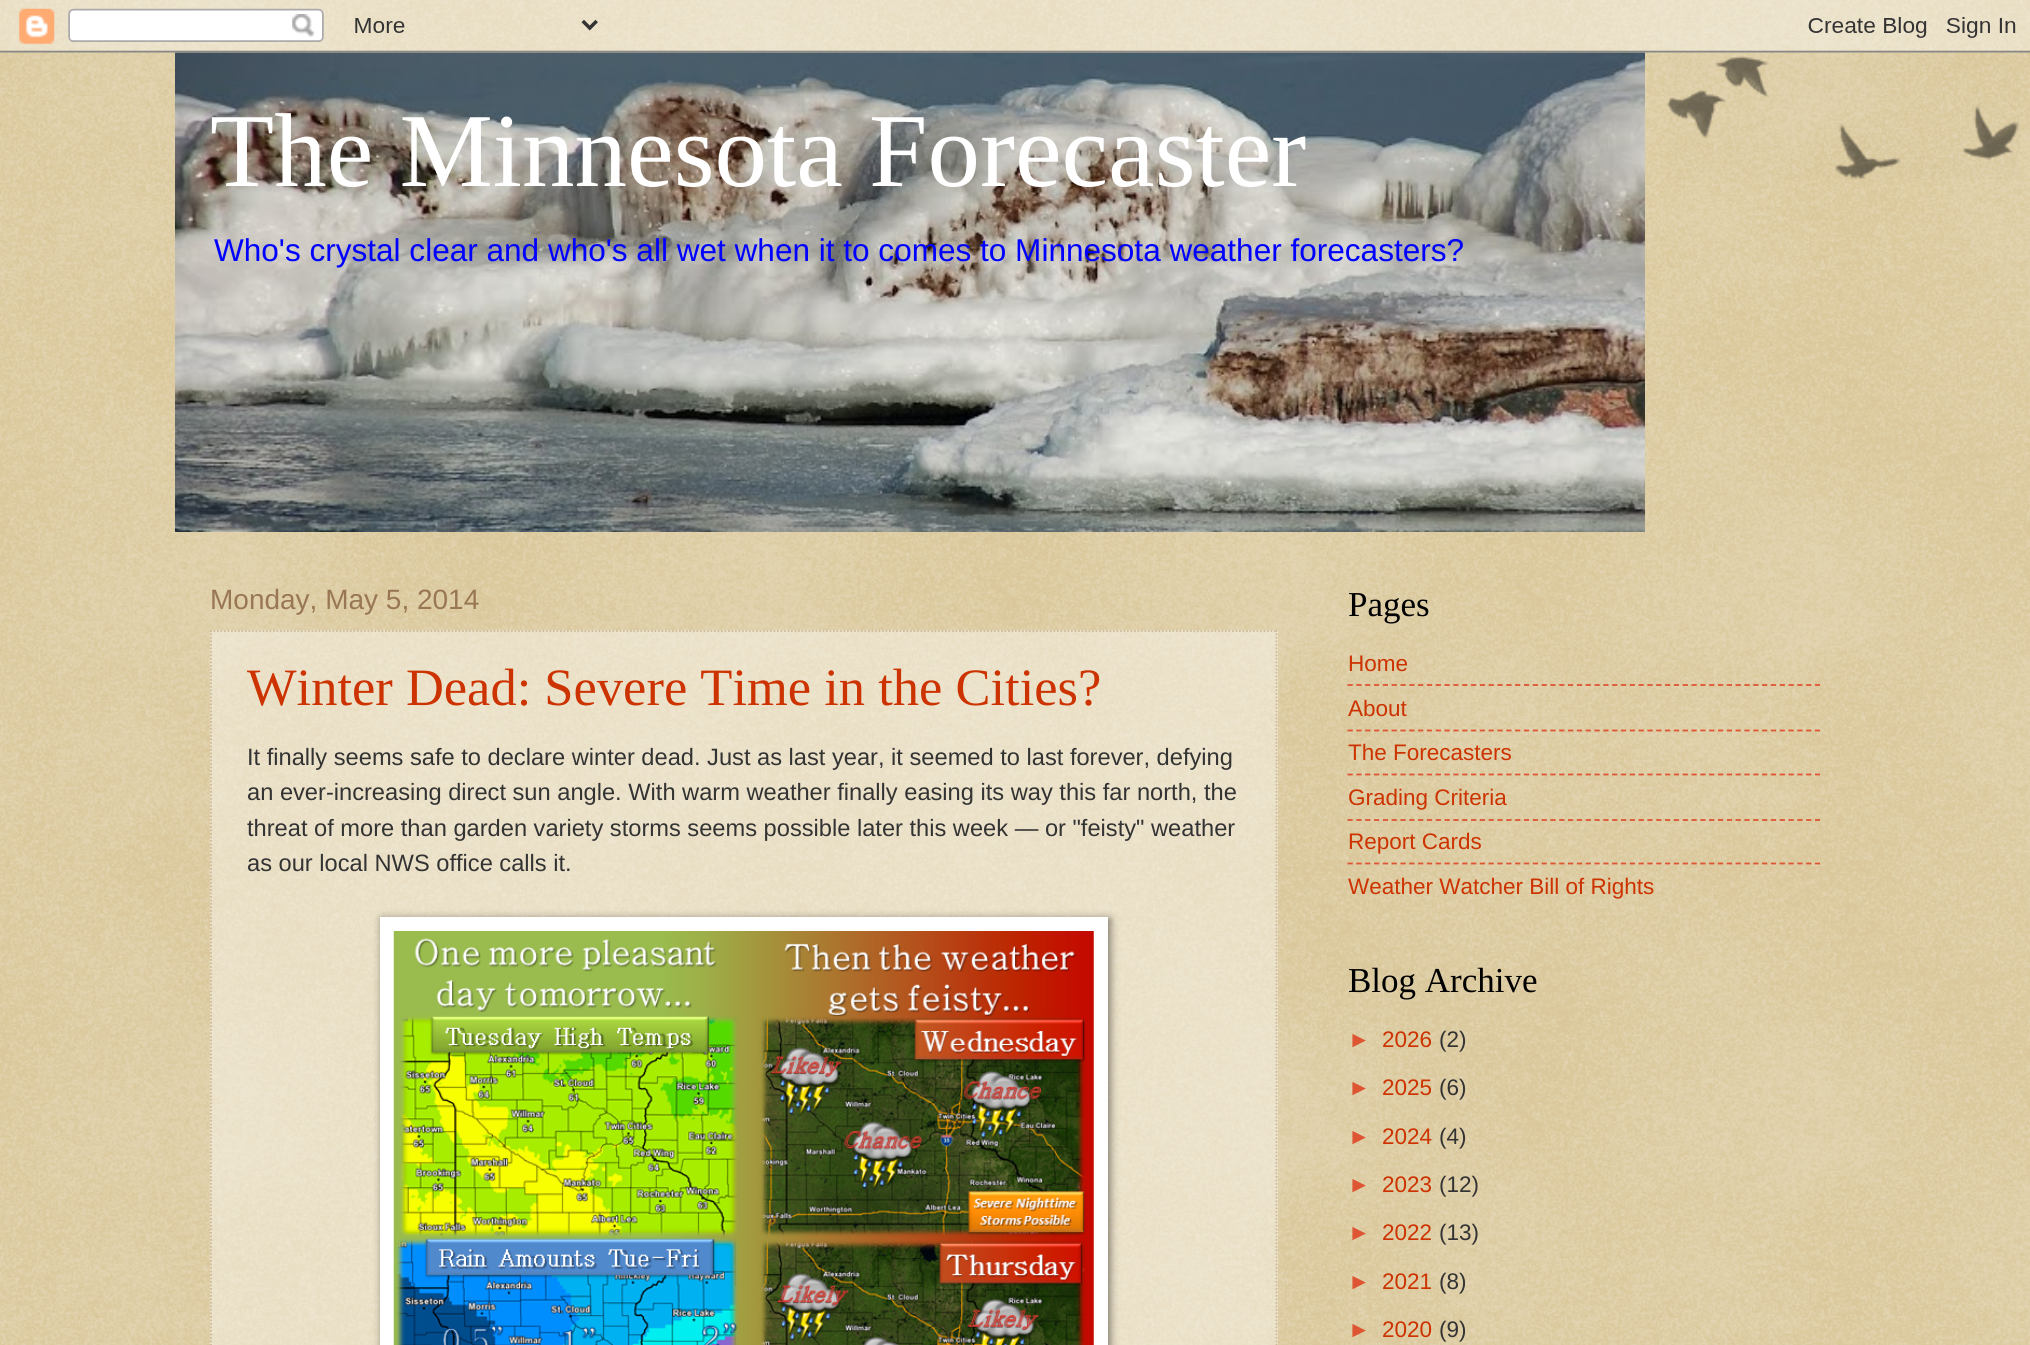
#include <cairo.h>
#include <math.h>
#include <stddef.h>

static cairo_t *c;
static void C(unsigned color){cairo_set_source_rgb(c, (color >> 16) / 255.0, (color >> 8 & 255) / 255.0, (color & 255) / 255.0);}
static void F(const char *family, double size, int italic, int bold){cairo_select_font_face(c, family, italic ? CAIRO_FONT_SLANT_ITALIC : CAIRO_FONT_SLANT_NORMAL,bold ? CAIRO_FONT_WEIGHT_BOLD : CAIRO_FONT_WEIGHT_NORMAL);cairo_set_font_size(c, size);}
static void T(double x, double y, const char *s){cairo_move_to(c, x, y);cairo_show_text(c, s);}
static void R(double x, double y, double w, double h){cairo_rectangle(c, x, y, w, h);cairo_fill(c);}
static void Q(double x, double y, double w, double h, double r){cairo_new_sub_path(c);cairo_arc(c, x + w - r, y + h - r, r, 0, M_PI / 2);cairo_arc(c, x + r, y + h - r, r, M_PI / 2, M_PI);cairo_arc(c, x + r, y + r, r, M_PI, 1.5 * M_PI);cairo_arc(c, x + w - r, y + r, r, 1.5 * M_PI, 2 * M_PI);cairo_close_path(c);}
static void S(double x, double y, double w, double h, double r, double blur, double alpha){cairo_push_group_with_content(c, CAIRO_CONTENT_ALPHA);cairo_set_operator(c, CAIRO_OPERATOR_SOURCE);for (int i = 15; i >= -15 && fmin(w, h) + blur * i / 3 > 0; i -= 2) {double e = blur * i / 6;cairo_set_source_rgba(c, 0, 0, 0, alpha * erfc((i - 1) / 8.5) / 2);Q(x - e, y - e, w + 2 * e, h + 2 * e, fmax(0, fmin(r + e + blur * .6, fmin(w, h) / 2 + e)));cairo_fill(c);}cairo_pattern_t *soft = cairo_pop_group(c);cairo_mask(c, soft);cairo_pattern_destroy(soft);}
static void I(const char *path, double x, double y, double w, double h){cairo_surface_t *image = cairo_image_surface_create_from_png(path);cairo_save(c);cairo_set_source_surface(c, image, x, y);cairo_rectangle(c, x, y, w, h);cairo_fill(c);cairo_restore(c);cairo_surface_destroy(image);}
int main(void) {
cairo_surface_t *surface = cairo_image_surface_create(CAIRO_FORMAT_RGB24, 2030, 1345);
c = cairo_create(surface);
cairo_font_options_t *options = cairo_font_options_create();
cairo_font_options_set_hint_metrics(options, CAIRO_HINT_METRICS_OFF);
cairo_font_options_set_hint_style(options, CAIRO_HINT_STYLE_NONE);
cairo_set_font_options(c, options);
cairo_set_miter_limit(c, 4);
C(0xc0a154);
cairo_paint(c);
I("1.png",0,0,2030,1345);
I("3.png",175,52,1470,480);
I("2.png",0,0,2030,53);
F("Liberation Serif",105,0,0);
C(0xffffff);
T(210,186,"The Minnesota Forecaster");
F("Liberation Sans",31.55,0,0);
C(0x0000ff);
T(214,261,"Who's crystal clear and who's all wet when it to comes to Minnesota weather forecasters?");
F("Liberation Sans",28,0,0);
C(0x997755);
T(210,609,"Monday, May 5, 2014");
cairo_set_source_rgba(c,1,1,1,0.4);
R(210,630,1068,715);
cairo_new_path(c);
cairo_move_to(c,210,631);
cairo_line_to(c,1277.5,631);
C(0xccbb99);
cairo_set_line_width(c,1.8);
cairo_set_dash(c,(double[]){1.75,1.75},2,0);
cairo_stroke(c);
cairo_new_path(c);
cairo_move_to(c,1276.5,630);
cairo_line_to(c,1276.5,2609);
cairo_stroke(c);
cairo_new_path(c);
cairo_move_to(c,211,630);
cairo_line_to(c,211,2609);
cairo_stroke(c);
F("Liberation Serif",52.5,0,0);
C(0xcc3300);
T(247,705,"Winter Dead: Severe Time in the Cities?");
F("Liberation Sans",23.65,0,0);
C(0x333333);
T(247,765,"It finally seems safe to declare winter dead. Just as last year, it seemed to last forever, defying");
T(247,800,"an ever-increasing direct sun angle. With warm weather finally easing its way this far north, the");
T(247,836,"threat of more than garden variety storms seems possible later this week — or \"feisty\" weather");
T(247,871,"as our local NWS office calls it.");
C(0x000000);
S(382,919,728,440,0,4.5,.5);
C(0xffffff);
R(380,917,728,428);
I("4.png",393,931,701,414);
F("Liberation Serif",35,0,0);
C(0x000000);
T(1348,616,"Pages");
F("Liberation Sans",22.5,0,0);
C(0xcc3300);
T(1348,671,"Home");
cairo_new_path(c);
cairo_move_to(c,1347.5,685);
cairo_line_to(c,1820,685);
C(0xdd5533);
cairo_set_dash(c,(double[]){5.25,3.57},2,0);
cairo_stroke(c);
C(0xcc3300);
T(1348,716,"About");
cairo_new_path(c);
cairo_move_to(c,1347.5,730.5);
cairo_line_to(c,1820,730.5);
C(0xdd5533);
cairo_stroke(c);
C(0xcc3300);
T(1348,760,"The Forecasters");
cairo_new_path(c);
cairo_move_to(c,1347.5,774.5);
cairo_line_to(c,1820,774.5);
C(0xdd5533);
cairo_stroke(c);
C(0xcc3300);
T(1348,805,"Grading Criteria");
cairo_new_path(c);
cairo_move_to(c,1347.5,820);
cairo_line_to(c,1820,820);
C(0xdd5533);
cairo_stroke(c);
C(0xcc3300);
T(1348,849,"Report Cards");
cairo_new_path(c);
cairo_move_to(c,1347.5,863.5);
cairo_line_to(c,1820,863.5);
C(0xdd5533);
cairo_stroke(c);
C(0xcc3300);
T(1348,894,"Weather Watcher Bill of Rights");
F("Liberation Serif",35,0,0);
C(0x000000);
T(1348,992,"Blog Archive");
F("Liberation Sans",22.5,0,0);
C(0xdd5533);
T(1348,1047,"►");
C(0xcc3300);
T(1382,1047,"2026");
C(0x333333);
T(1439,1047,"(2)");
C(0xdd5533);
T(1348,1095,"►");
C(0xcc3300);
T(1382,1095,"2025");
C(0x333333);
T(1439,1095,"(6)");
C(0xdd5533);
T(1348,1144,"►");
C(0xcc3300);
T(1382,1144,"2024");
C(0x333333);
T(1439,1144,"(4)");
C(0xdd5533);
T(1348,1192,"►");
C(0xcc3300);
T(1382,1192,"2023");
C(0x333333);
T(1439,1192,"(12)");
C(0xdd5533);
T(1348,1240,"►");
C(0xcc3300);
T(1382,1240,"2022");
C(0x333333);
T(1439,1240,"(13)");
C(0xdd5533);
T(1348,1289,"►");
C(0xcc3300);
T(1382,1289,"2021");
C(0x333333);
T(1439,1289,"(8)");
C(0xdd5533);
T(1348,1337,"►");
C(0xcc3300);
T(1382,1337,"2020");
C(0x333333);
T(1439,1337,"(9)");
I("5.png",1667,56,353,123);
cairo_surface_write_to_png(surface, "o.png");
cairo_font_options_destroy(options);
cairo_destroy(c);
cairo_surface_destroy(surface);
return 0;
}
